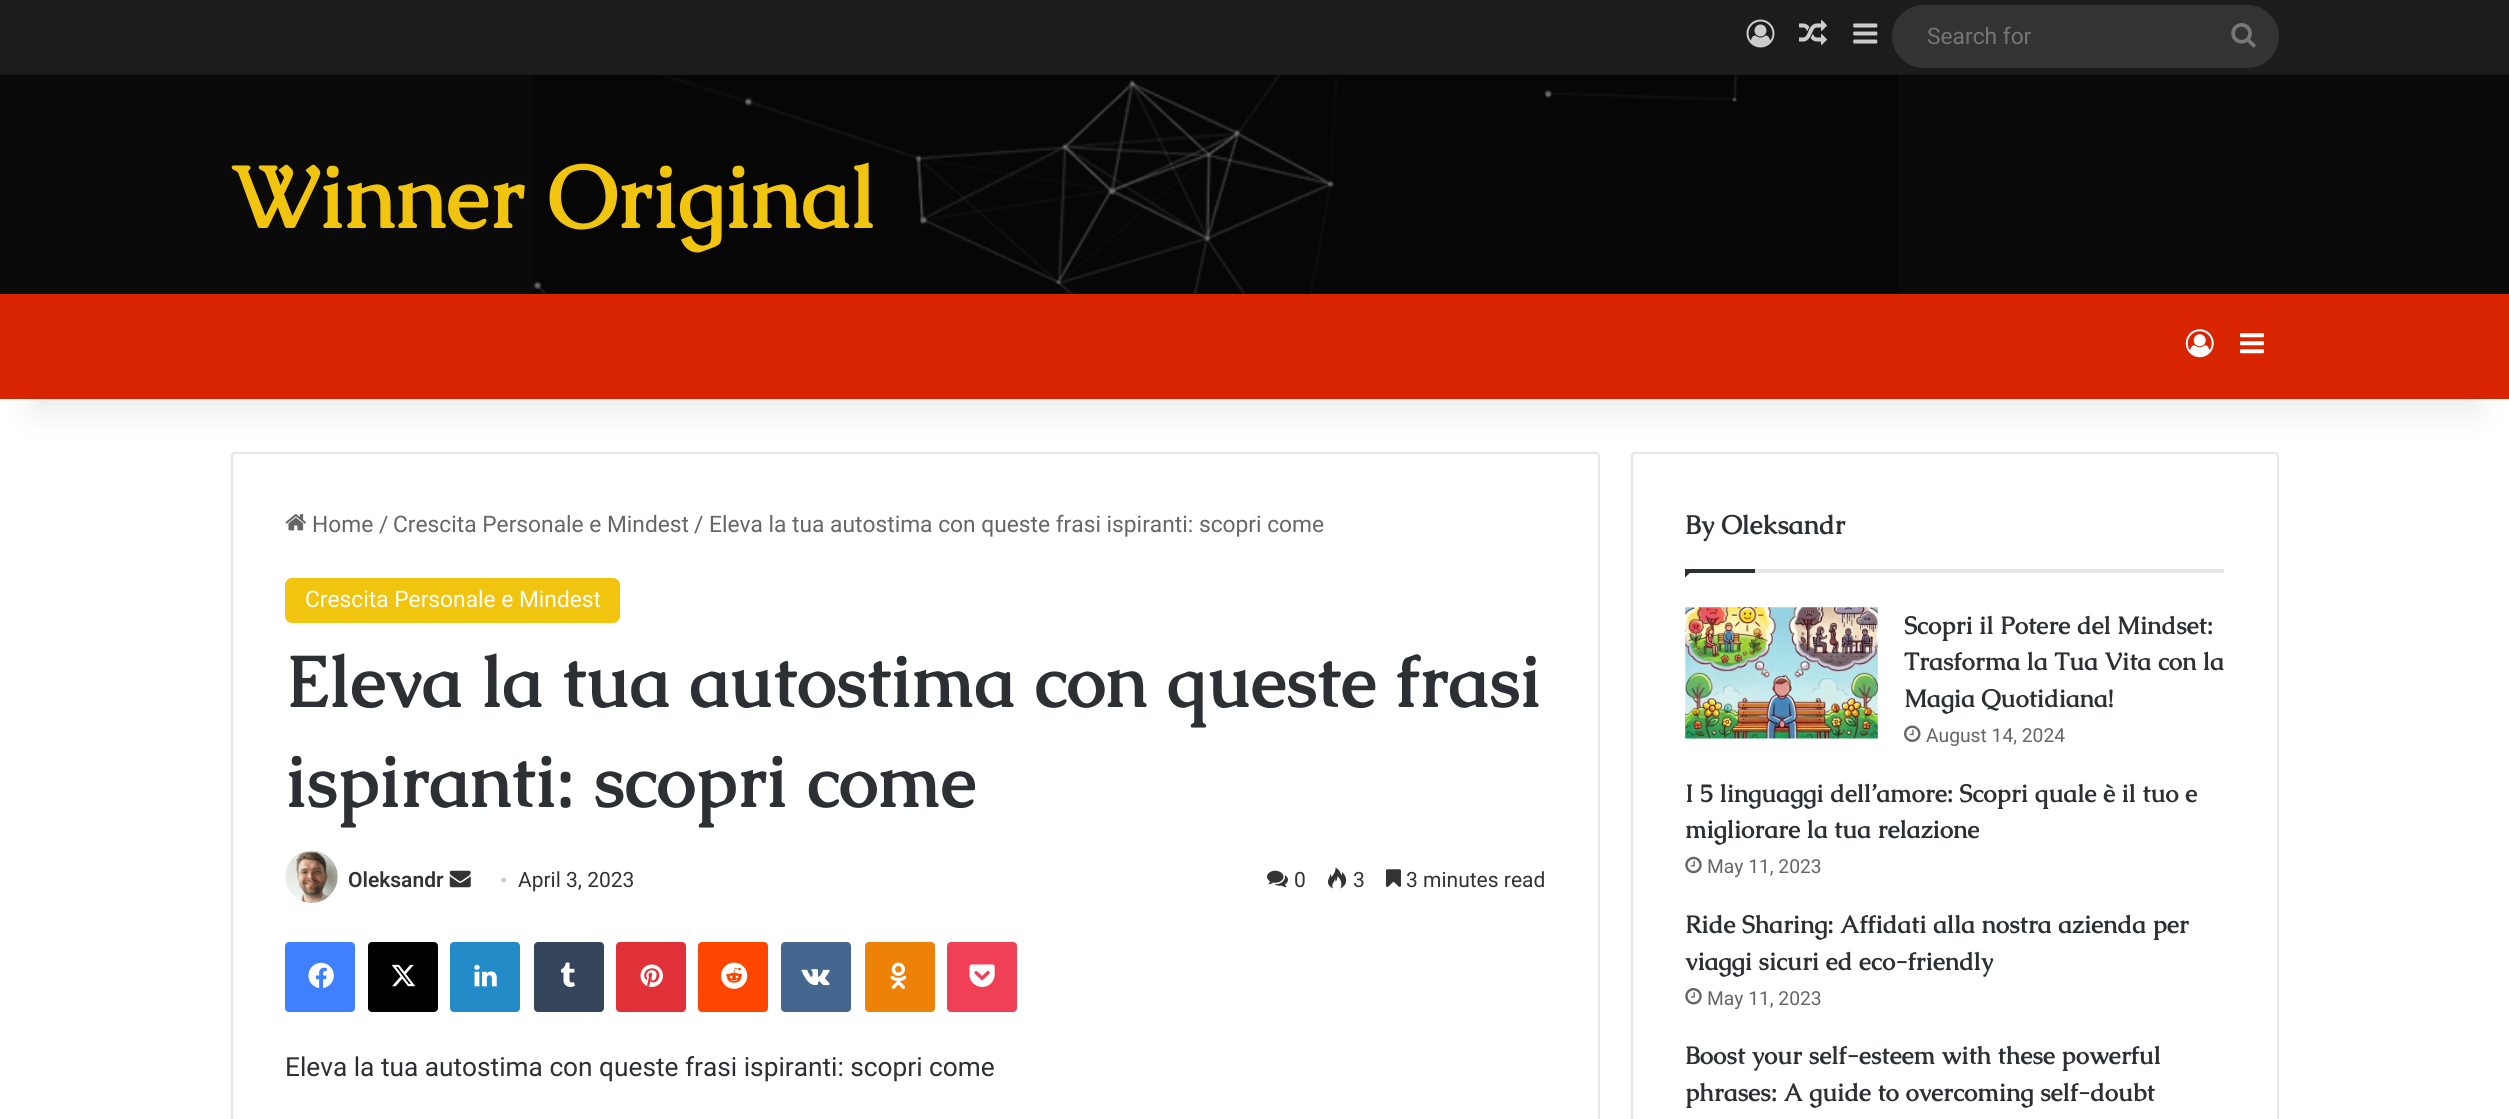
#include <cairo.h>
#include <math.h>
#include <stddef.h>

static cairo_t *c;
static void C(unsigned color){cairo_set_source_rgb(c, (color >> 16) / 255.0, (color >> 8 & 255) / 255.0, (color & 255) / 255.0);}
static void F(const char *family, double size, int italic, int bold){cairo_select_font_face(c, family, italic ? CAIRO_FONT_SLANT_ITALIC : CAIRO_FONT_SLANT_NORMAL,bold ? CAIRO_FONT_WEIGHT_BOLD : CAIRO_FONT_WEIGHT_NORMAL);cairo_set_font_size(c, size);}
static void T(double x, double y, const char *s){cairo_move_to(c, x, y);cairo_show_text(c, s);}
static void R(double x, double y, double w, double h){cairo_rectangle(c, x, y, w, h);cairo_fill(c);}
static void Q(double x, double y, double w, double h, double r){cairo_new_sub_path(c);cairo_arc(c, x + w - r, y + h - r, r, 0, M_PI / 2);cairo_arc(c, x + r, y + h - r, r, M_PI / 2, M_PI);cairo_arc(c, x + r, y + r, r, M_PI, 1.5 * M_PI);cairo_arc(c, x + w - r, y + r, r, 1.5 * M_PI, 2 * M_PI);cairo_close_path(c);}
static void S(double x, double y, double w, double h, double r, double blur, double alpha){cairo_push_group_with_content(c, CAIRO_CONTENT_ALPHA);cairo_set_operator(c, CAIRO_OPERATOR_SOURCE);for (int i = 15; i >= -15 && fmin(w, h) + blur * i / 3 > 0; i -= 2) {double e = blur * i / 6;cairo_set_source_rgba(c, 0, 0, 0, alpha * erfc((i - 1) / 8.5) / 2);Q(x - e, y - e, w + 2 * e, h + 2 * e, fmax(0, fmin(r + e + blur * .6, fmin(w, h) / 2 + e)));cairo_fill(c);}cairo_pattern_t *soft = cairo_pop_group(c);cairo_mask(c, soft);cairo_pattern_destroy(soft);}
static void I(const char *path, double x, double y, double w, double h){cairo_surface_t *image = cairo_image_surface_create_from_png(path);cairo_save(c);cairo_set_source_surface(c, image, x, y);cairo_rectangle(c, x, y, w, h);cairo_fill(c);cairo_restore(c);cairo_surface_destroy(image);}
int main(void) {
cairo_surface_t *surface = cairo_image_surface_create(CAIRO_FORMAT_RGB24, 2509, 1119);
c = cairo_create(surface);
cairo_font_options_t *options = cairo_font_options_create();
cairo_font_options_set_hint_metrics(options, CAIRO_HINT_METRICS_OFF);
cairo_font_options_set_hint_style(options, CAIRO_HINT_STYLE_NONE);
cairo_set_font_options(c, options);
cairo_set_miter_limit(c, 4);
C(0xffffff);
cairo_paint(c);
Q(232,453,1367,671,3);
C(0xe6e6e6);
cairo_stroke(c);
Q(1632,453,646,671,3);
cairo_stroke(c);
C(0x000000);
S(35,79,2440,329,0,17.5,.1);
C(0x0a0a0a);
R(0,75,2509,219);
I("1.png",533,75,1365,219);
C(0x1a1c1e);
R(0,0,2509,75);
cairo_set_source_rgba(c,0,0,0,0.1);
R(0,74,2509,1);
I("2.png",1746,19,29,29);
I("3.png",1799,20,28,25);
I("4.png",1853,23,25,21);
C(0x313335);
Q(1892,5,387,63,31.5);
cairo_fill(c);
F("Roboto",22.75,0,0);
C(0x757575);
T(1927,44,"Search for");
I("5.png",2231,23,25,25);
F("Caudex",87.5,0,1);
C(0xf1c40f);
T(231,228,"Winner Original");
C(0xd82400);
R(0,294,2509,105);
I("6.png",2185,329,29,29);
I("7.png",2240,333,24,21);
I("8.png",285,514,21,17);
F("Roboto",22.75,0,0);
C(0x666666);
T(312,532,"Home");
T(379,532,"/");
T(393,532,"Crescita Personale e Mindest");
T(694,532,"/");
T(709,532,"Eleva la tua autostima con queste frasi ispiranti: scopri come");
C(0xf1c40f);
Q(285,578,335,45,7);
cairo_fill(c);
C(0xffffff);
T(305,607,"Crescita Personale e Mindest");
F("Caudex",71.75,0,1);
C(0x2c2f34);
T(285,707,"Eleva la tua autostima con queste frasi");
T(285,807,"ispiranti: scopri come");
I("9.png",285,850,53,53);
F("Roboto SemiBold",21,0,0);
C(0x333333);
T(348,887,"Oleksandr");
I("10.png",449,870,22,18);
F("Liberation Serif",21,0,0);
C(0xcccccc);
T(500,887,"•");
F("Roboto",21,0,0);
C(0x333333);
T(518,887,"April 3, 2023");
I("11.png",1267,870,21,18);
T(1294,887,"0");
I("12.png",1328,867,19,22);
T(1353,887,"3");
I("13.png",1386,869,15,18);
T(1406,887,"3 minutes read");
C(0x4080ff);
Q(285,942,70,70,4);
cairo_fill(c);
I("14.png",308,962,26,26);
C(0x000000);
Q(368,942,70,70,4);
cairo_fill(c);
I("15.png",391,964,25,23);
C(0x238cc8);
Q(450,942,70,70,4);
cairo_fill(c);
I("16.png",474,964,23,23);
C(0x35465c);
Q(534,942,70,70,4);
cairo_fill(c);
I("17.png",561,962,14,25);
C(0xe13138);
Q(616,942,70,70,4);
cairo_fill(c);
I("18.png",640,964,23,23);
C(0xff4500);
Q(698,942,70,70,4);
cairo_fill(c);
I("19.png",721,962,27,27);
C(0x45668e);
Q(781,942,70,70,4);
cairo_fill(c);
I("20.png",801,969,29,17);
C(0xee8208);
Q(865,942,70,70,4);
cairo_fill(c);
I("21.png",890,962,17,27);
C(0xef4056);
Q(947,942,70,70,4);
cairo_fill(c);
I("22.png",969,964,26,23);
F("Roboto",26.25,0,0);
C(0x2c2f34);
T(285,1076,"Eleva la tua autostima con queste frasi ispiranti: scopri come");
C(0xe6e6e6);
R(1755,569,469,4);
F("Caudex",26.25,0,1);
C(0x2c2f34);
T(1685,534,"By Oleksandr");
cairo_new_path(c);
cairo_move_to(c,1685,569);
cairo_line_to(c,1694,569);
cairo_line_to(c,1685,577.5);
cairo_close_path(c);
cairo_fill(c);
R(1685,569,70,4);
I("23.png",1685,607,193,132);
F("Caudex",24.5,0,1);
T(1904,634,"Scopri il Potere del Mindset:");
T(1904,670,"Trasforma la Tua Vita con la");
T(1904,707,"Magia Quotidiana!");
I("24.png",1904,725,17,17);
F("Roboto",19.25,0,0);
C(0x666666);
T(1926,742,"August 14, 2024");
F("Caudex",24.5,0,1);
C(0x2c2f34);
T(1685,802,"I 5 linguaggi dell’amore: Scopri quale è il tuo e");
T(1685,838,"migliorare la tua relazione");
I("25.png",1685,856,17,18);
F("Roboto",19.25,0,0);
C(0x666666);
T(1707,873,"May 11, 2023");
F("Caudex",24.5,0,1);
C(0x2c2f34);
T(1685,933,"Ride Sharing: Affidati alla nostra azienda per");
T(1685,970,"viaggi sicuri ed eco-friendly");
I("26.png",1685,988,17,17);
F("Roboto",19.25,0,0);
C(0x666666);
T(1707,1005,"May 11, 2023");
F("Caudex",24.5,0,1);
C(0x2c2f34);
T(1685,1064,"Boost your self-esteem with these powerful");
T(1685,1101,"phrases: A guide to overcoming self-doubt");
cairo_surface_write_to_png(surface, "o.png");
cairo_font_options_destroy(options);
cairo_destroy(c);
cairo_surface_destroy(surface);
return 0;
}
